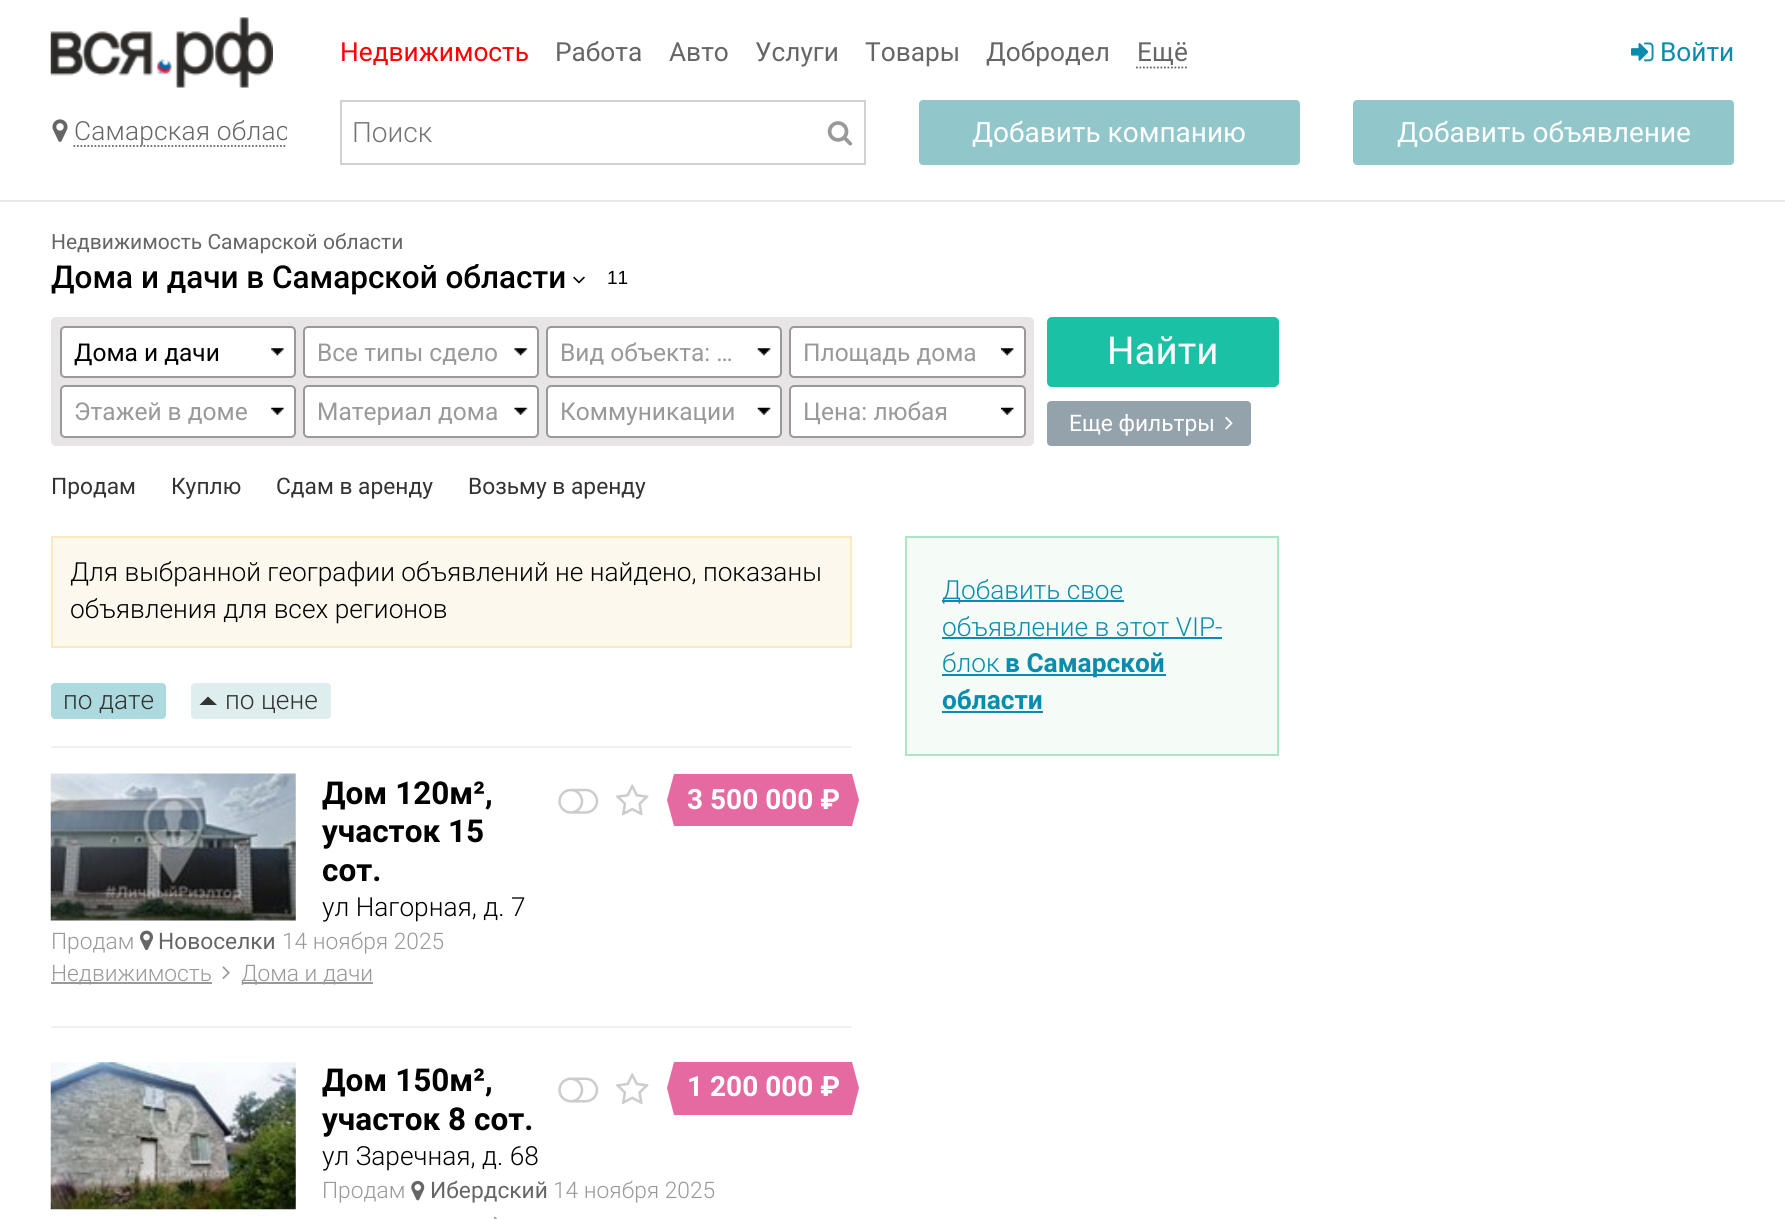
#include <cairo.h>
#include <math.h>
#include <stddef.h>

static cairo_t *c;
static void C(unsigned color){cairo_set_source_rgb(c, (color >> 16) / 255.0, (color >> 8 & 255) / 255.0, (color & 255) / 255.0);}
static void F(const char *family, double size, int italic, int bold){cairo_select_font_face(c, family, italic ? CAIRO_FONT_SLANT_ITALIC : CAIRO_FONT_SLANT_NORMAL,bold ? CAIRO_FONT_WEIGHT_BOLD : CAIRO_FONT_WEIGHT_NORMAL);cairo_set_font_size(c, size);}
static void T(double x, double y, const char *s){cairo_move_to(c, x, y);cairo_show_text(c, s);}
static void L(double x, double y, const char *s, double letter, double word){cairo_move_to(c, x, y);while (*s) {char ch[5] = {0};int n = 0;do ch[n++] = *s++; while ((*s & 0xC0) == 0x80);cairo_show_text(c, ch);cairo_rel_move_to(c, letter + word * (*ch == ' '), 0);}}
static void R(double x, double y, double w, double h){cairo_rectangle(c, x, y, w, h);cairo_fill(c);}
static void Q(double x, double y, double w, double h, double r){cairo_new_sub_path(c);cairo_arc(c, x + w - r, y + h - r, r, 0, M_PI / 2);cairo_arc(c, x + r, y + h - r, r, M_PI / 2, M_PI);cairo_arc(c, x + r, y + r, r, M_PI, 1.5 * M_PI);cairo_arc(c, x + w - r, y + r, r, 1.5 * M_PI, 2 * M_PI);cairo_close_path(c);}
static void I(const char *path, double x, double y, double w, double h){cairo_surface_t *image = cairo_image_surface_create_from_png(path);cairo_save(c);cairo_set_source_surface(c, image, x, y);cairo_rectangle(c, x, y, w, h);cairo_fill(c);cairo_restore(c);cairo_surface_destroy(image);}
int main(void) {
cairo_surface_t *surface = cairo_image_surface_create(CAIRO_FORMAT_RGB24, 1785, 1219);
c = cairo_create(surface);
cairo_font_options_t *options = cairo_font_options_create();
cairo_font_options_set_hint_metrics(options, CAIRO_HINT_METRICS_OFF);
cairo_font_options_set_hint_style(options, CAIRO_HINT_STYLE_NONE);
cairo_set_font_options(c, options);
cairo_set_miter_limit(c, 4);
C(0xffffff);
cairo_paint(c);
C(0xe8e8e8);
R(0,200,1785,2);
I("1.png",50,17,223,71);
F("Roboto",26.25,0,0);
C(0xff0000);
T(340,61,"Недвижимость");
C(0x666666);
T(555,61,"Работа");
T(669,61,"Авто");
T(755,61,"Услуги");
T(865,61,"Товары");
T(986,61,"Добродел");
cairo_new_path(c);
cairo_move_to(c,1136,67.5);
cairo_line_to(c,1188,67.5);
cairo_set_line_width(c,1.8);
cairo_set_dash(c,(double[]){1.75,1.75},2,0);
cairo_stroke(c);
L(1137,61,"Ещё",.2,0);
I("2.png",1631,42,23,20);
C(0x098cae);
T(1660,61,"Войти");
I("3.png",52,119,16,23);
cairo_save(c);
cairo_rectangle(c,51,100,236,63);
cairo_clip(c);
cairo_new_path(c);
cairo_move_to(c,73.5,146);
cairo_line_to(c,317,146);
C(0x666666);
cairo_stroke(c);
F("Roboto Light",26.25,0,0);
L(74,140,"Самарская облас",.2,0);
cairo_restore(c);
cairo_rectangle(c,341,101,524,63);
C(0xd1d1d1);
cairo_set_line_width(c,2);
cairo_set_dash(c,NULL,0,0);
cairo_stroke(c);
F("Roboto Light",28,0,0);
C(0x757575);
T(352,142,"Поиск");
I("4.png",827,121,26,25);
C(0x91c6ca);
Q(919,100,381,65,4);
cairo_fill(c);
F("Roboto",28,0,0);
C(0xffffff);
T(972,142,"Добавить компанию");
C(0x91c6ca);
Q(1353,100,381,65,4);
cairo_fill(c);
C(0xffffff);
T(1397,142,"Добавить объявление");
F("Roboto",21,0,0);
C(0x666666);
T(51,249,"Недвижимость Самарской области");
F("Roboto Medium",31.5,0,0);
C(0x000000);
T(51,288,"Дома и дачи в Самарской области");
I("5.png",573,276,12,8);
F("Liberation Sans",19,0,0);
T(607,284,"11");
C(0xe8e5e6);
Q(51,317,983,129,5);
cairo_fill(c);
C(0xffffff);
Q(60,326,236,52,5);
cairo_fill(c);
I("6.png",271,348,13,8);
Q(61,327,234,50,4);
C(0x999999);
cairo_stroke(c);
F("Roboto",24.5,0,0);
C(0x000000);
T(74,361,"Дома и дачи");
C(0xffffff);
Q(303,326,236,52,5);
cairo_fill(c);
I("7.png",514,348,14,8);
Q(304,327,234,50,4);
C(0x999999);
cairo_stroke(c);
T(317,361,"Все типы сдело");
C(0xffffff);
Q(546,326,236,52,5);
cairo_fill(c);
I("8.png",757,348,14,8);
Q(547,327,234,50,4);
C(0x999999);
cairo_stroke(c);
T(560,361,"Вид объекта: …");
C(0xffffff);
Q(789,326,237,52,5);
cairo_fill(c);
I("9.png",1001,348,13,8);
Q(790,327,235,50,4);
C(0x999999);
cairo_stroke(c);
T(803,361,"Площадь дома");
C(0x1bc1a4);
Q(1047,317,232,70,5);
cairo_fill(c);
F("Roboto",38.5,0,0);
C(0xffffff);
T(1107,364,"Найти");
C(0x94a3ab);
Q(1048,402,202,43,3);
cairo_fill_preserve(c);
cairo_stroke(c);
F("Roboto",22.75,0,0);
C(0xffffff);
T(1069,431,"Еще фильтры");
I("10.png",1225,416,8,14);
Q(60,385,236,53,5);
cairo_fill(c);
I("11.png",271,407,13,8);
Q(61,386,234,51,4);
C(0x999999);
cairo_stroke(c);
F("Roboto",24.5,0,0);
T(74,420,"Этажей в доме");
C(0xffffff);
Q(303,385,236,53,5);
cairo_fill(c);
I("12.png",514,407,14,8);
Q(304,386,234,51,4);
C(0x999999);
cairo_stroke(c);
T(317,420,"Материал дома");
C(0xffffff);
Q(546,385,236,53,5);
cairo_fill(c);
I("13.png",757,407,14,8);
Q(547,386,234,51,4);
C(0x999999);
cairo_stroke(c);
T(560,420,"Коммуникации");
C(0xffffff);
Q(789,385,237,53,5);
cairo_fill(c);
I("14.png",1001,407,13,8);
Q(790,386,235,51,4);
C(0x999999);
cairo_stroke(c);
T(803,420,"Цена: любая");
F("Roboto",22.75,0,0);
C(0x333333);
T(51,494,"Продам");
T(171,494,"Куплю");
T(276,494,"Сдам в аренду");
T(468,494,"Возьму в аренду");
C(0xfcf8ed);
cairo_rectangle(c,52,537,799,110);
cairo_fill_preserve(c);
C(0xfaeabe);
cairo_stroke(c);
F("Roboto Light",26.25,0,0);
C(0x000000);
T(70,581,"Для выбранной географии объявлений не найдено, показаны");
T(70,618,"объявления для всех регионов");
C(0xf0f0f0);
R(51,746,801,2);
C(0xacdade);
Q(51,683,115,36,4);
cairo_fill(c);
C(0x333333);
T(63,709,"по дате");
C(0xdeedee);
Q(191,683,140,36,4);
cairo_fill(c);
C(0x333333);
cairo_new_path(c);
cairo_move_to(c,217,705);
cairo_line_to(c,199.5,705);
cairo_line_to(c,208,696.5);
cairo_close_path(c);
cairo_fill(c);
T(225,709,"по цене");
C(0xf0f0f0);
R(51,1026,801,2);
I("15.png",50,773,246,148);
F("Roboto",31.5,0,1);
C(0x000000);
T(322,804,"Дом 120м²,");
T(322,842,"участок 15");
T(322,881,"сот.");
I("16.png",558,788,41,26);
I("17.png",616,784,33,32);
C(0xe56aa1);
R(674,774,178,52);
cairo_new_path(c);
cairo_move_to(c,674,774);
cairo_line_to(c,674,826);
cairo_line_to(c,667,800);
cairo_close_path(c);
cairo_fill(c);
F("Roboto",28,0,1);
C(0xffffff);
T(687,809,"3 500 000 ₽");
C(0xe56aa1);
cairo_new_path(c);
cairo_move_to(c,852,826);
cairo_line_to(c,852,774);
cairo_line_to(c,859,800);
cairo_close_path(c);
cairo_fill(c);
F("Roboto Light",26.25,0,0);
C(0x000000);
T(322,916,"ул Нагорная, д. 7");
F("Roboto Light",22.75,0,0);
C(0x999999);
T(51,949,"Продам");
I("18.png",140,930,13,21);
F("Roboto",22.75,0,0);
C(0x666666);
T(158,949,"Новоселки");
F("Roboto Light",22.75,0,0);
C(0x999999);
T(282,949,"14 ноября 2025");
R(51,982,161,2);
T(51,981,"Недвижимость");
I("19.png",222,966,8,13);
R(242,982,131,2);
T(241,981,"Дома и дачи");
I("20.png",50,1062,246,148);
F("Roboto",31.5,0,1);
C(0x000000);
T(322,1091,"Дом 150м²,");
T(322,1130,"участок 8 сот.");
I("21.png",558,1077,41,26);
I("22.png",616,1073,33,31);
C(0xe56aa1);
R(674,1062,178,53);
cairo_new_path(c);
cairo_move_to(c,674,1062);
cairo_line_to(c,674,1115);
cairo_line_to(c,667,1088);
cairo_close_path(c);
cairo_fill(c);
F("Roboto",28,0,1);
C(0xffffff);
T(687,1096,"1 200 000 ₽");
C(0xe56aa1);
cairo_new_path(c);
cairo_move_to(c,852,1115);
cairo_line_to(c,852,1062);
cairo_line_to(c,859,1088);
cairo_close_path(c);
cairo_fill(c);
F("Roboto Light",26.25,0,0);
C(0x000000);
T(322,1165,"ул Заречная, д. 68");
F("Roboto Light",22.75,0,0);
C(0x999999);
T(322,1198,"Продам");
I("23.png",411,1180,14,21);
F("Roboto",22.75,0,0);
C(0x666666);
T(430,1198,"Ибердский");
F("Roboto Light",22.75,0,0);
C(0x999999);
T(553,1198,"14 ноября 2025");
I("24.png",493,1216,5,3);
C(0xf5fcf8);
cairo_rectangle(c,906,537,372,218);
cairo_fill_preserve(c);
C(0xade4c5);
cairo_stroke(c);
C(0x098cae);
R(942,600,182,2);
F("Roboto Light",26.25,0,0);
T(942,599,"Добавить свое");
T(942,636,"объявление в этот VIP-");
R(942,637,280,2);
T(942,672,"блок");
R(942,674,224,2);
F("Roboto",26.25,0,1);
T(1005,672,"в Самарской");
T(942,709,"области");
R(942,711,101,2);
cairo_surface_write_to_png(surface, "o.png");
cairo_font_options_destroy(options);
cairo_destroy(c);
cairo_surface_destroy(surface);
return 0;
}
